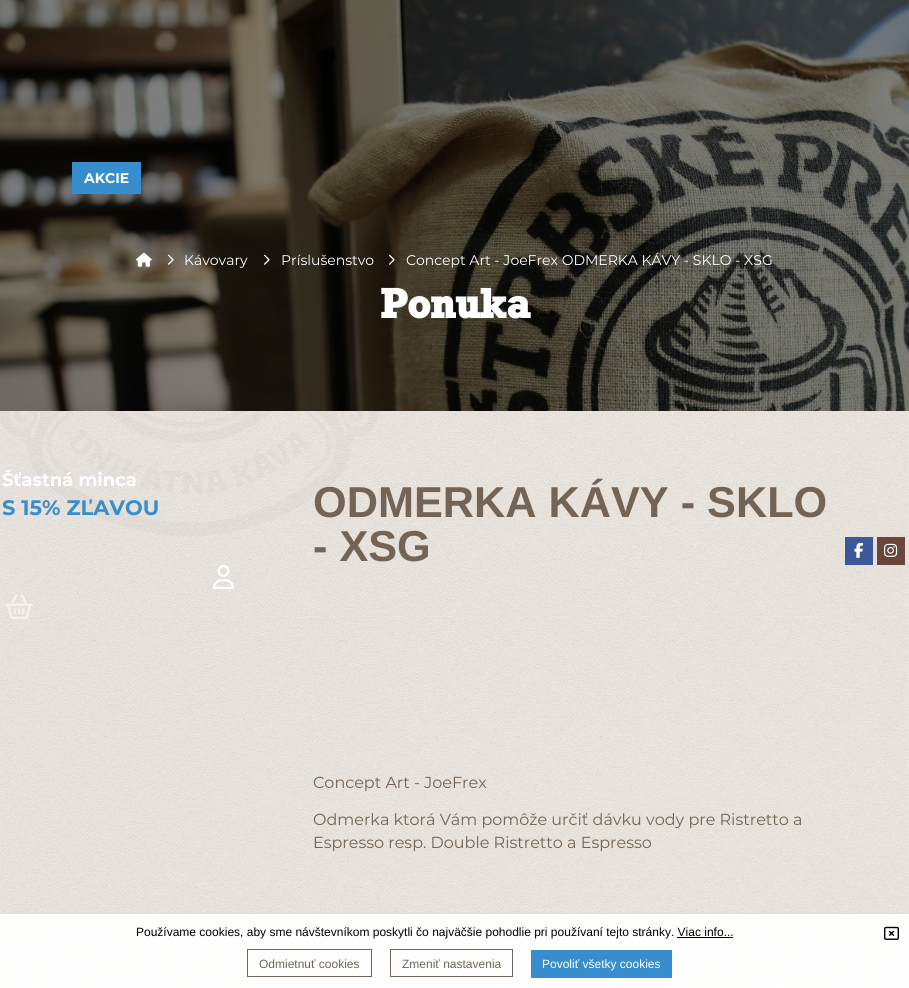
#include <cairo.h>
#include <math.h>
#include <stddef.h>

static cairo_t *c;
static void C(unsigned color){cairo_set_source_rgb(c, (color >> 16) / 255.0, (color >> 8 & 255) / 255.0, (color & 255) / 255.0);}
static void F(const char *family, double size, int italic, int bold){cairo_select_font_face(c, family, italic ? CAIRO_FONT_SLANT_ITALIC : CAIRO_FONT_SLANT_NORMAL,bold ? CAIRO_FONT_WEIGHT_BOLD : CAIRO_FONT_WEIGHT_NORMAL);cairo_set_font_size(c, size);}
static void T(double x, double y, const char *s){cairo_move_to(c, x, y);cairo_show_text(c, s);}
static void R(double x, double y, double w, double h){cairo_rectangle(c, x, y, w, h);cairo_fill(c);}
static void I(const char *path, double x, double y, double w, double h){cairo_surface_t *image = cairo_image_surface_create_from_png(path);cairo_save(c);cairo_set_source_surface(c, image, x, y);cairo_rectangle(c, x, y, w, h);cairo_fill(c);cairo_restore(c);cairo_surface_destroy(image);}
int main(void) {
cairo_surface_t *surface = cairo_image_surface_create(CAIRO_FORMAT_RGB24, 909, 988);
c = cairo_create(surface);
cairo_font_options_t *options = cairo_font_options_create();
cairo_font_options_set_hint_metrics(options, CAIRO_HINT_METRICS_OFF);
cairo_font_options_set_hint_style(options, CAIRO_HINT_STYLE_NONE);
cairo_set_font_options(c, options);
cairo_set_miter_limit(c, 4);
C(0xffffff);
cairo_paint(c);
I("1.png",0,411,909,577);
I("6.png",0,0,909,411);
C(0x388dcc);
R(72,162,69,32);
F("Montserrat",14,0,1);
C(0xffffff);
T(84,183,"AKCIE");
F("Montserrat",18,0,1);
T(2,486,"Šťastná minca");
F("Montserrat",21,0,1);
C(0x388dcc);
T(2,515,"S 15% ZĽAVOU");
C(0x3b5998);
R(845,537,28,28);
I("2.png",854,542,9,16);
C(0x6a453b);
R(877,537,28,28);
I("3.png",884,543,14,14);
I("4.png",213,565,21,24);
I("5.png",5,594,28,25);
I("7.png",136,252,16,15);
I("8.png",168,254,6,11);
F("Montserrat",14,0,0);
C(0xffffff);
T(184,265,"Kávovary");
I("9.png",264,254,6,11);
T(281,265,"Príslušenstvo");
I("10.png",389,254,6,11);
T(406,265,"Concept Art - JoeFrex ODMERKA KÁVY - SKLO - XSG");
F("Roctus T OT",43.25,0,1);
T(380,318,"Ponuka");
F("Liberation Sans",43.25,0,1);
C(0x746455);
T(313,517,"ODMERKA KÁVY - SKLO");
T(313,561,"- XSG");
F("Montserrat",16,0,0);
T(313,788,"Concept Art - JoeFrex");
T(313,825,"Odmerka ktorá Vám pomôže určiť dávku vody pre Ristretto a");
T(313,848,"Espresso resp. Double Ristretto a Espresso");
cairo_set_source_rgba(c,1,1,1,0.95);
R(0,914,909,74);
C(0xdddddd);
R(0,913,909,1);
F("Liberation Sans",12,0,0);
C(0x000000);
T(136,936,"Používame cookies, aby sme návštevníkom poskytli čo najväčšie pohodlie pri používaní tejto stránky. Viac info...");
R(677,937,56,1);
I("11.png",884,926,15,14);
cairo_rectangle(c,247.5,949.5,124,27);
C(0x746455);
cairo_set_line_width(c,1);
cairo_stroke(c);
T(259,968,"Odmietnuť cookies");
cairo_rectangle(c,390.5,949.5,122,27);
cairo_stroke(c);
T(402,968,"Zmeniť nastavenia");
C(0x388dcc);
R(531,950,141,28);
C(0xffffff);
T(542,968,"Povoliť všetky cookies");
cairo_surface_write_to_png(surface, "o.png");
cairo_font_options_destroy(options);
cairo_destroy(c);
cairo_surface_destroy(surface);
return 0;
}
